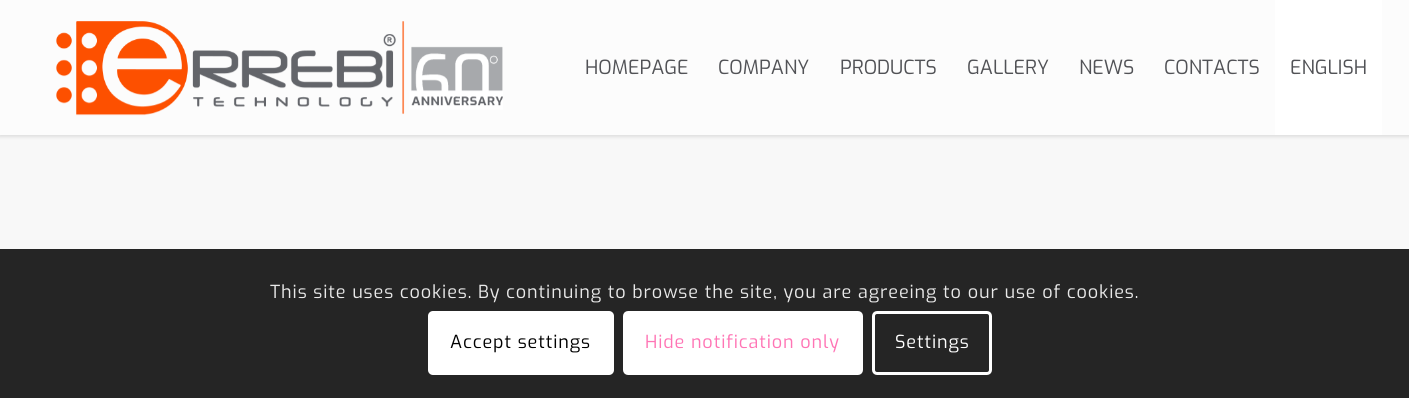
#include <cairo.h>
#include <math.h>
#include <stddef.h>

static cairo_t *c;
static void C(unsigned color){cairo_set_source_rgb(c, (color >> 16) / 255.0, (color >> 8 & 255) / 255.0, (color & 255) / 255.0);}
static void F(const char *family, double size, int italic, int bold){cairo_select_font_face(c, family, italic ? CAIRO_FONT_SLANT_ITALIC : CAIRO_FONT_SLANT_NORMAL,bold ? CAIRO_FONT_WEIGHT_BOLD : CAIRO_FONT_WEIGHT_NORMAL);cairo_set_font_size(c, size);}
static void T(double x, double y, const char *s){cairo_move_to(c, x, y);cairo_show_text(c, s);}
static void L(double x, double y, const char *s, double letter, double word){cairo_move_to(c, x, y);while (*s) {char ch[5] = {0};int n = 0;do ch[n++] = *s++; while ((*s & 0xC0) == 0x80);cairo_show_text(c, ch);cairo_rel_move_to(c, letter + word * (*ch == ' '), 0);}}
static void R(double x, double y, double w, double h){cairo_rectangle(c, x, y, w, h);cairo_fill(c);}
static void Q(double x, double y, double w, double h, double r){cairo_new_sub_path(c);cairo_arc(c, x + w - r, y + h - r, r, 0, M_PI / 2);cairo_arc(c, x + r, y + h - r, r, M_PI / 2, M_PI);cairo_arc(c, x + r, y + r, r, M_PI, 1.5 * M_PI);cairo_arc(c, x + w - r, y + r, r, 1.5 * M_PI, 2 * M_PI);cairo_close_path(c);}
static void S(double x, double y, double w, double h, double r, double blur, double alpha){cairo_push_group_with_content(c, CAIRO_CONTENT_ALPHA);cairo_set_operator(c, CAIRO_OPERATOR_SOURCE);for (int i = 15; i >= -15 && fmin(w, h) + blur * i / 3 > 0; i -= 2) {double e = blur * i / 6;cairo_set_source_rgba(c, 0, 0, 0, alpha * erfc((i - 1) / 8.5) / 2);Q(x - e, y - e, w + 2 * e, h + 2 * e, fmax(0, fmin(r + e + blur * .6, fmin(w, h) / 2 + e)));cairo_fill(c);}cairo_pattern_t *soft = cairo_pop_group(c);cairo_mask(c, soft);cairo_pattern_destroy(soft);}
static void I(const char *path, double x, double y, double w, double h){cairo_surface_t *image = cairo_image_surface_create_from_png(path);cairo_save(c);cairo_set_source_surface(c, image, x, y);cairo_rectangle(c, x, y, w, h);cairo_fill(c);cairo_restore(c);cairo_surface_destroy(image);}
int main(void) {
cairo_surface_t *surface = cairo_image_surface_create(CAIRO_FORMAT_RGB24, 1409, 398);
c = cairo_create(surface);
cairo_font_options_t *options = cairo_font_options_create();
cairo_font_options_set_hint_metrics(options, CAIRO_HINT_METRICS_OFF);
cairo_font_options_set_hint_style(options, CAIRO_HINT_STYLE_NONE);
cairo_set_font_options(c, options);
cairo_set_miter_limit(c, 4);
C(0xf8f8f8);
cairo_paint(c);
C(0x000000);
S(-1,-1,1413,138,0,1.5,.1);
C(0xfcfcfc);
R(0,0,1409,135);
I("1.png",56,21,447,95);
F("Exo",19.5,0,0);
C(0x515256);
T(585,74,"HOMEPAGE");
T(718,74,"COMPANY");
T(840,74,"PRODUCTS");
T(967,74,"GALLERY");
T(1079,74,"NEWS");
T(1164,74,"CONTACTS");
C(0xffffff);
R(1275,0,107,135);
C(0x515256);
T(1290,74,"ENGLISH");
cairo_set_source_rgba(c,0,0,0,0.85);
R(0,249,1409,149);
F("Exo",18,0,0);
C(0xe9e9e9);
L(270,298,"This site uses cookies. By continuing to browse the site, you are agreeing to our use of cookies.",.9,0);
C(0xffffff);
Q(428,311,186,64,5);
cairo_fill(c);
C(0x000000);
L(450,348,"Accept settings",.9,0);
C(0xffffff);
Q(624.5,312.5,237,61,3.5);
cairo_fill_preserve(c);
cairo_set_line_width(c,3);
cairo_stroke(c);
C(0xff75b5);
L(645,348,"Hide notification only",.9,0);
Q(873.5,312.5,117,61,3.5);
C(0xffffff);
cairo_stroke(c);
L(895,348,"Settings",.9,0);
cairo_surface_write_to_png(surface, "o.png");
cairo_font_options_destroy(options);
cairo_destroy(c);
cairo_surface_destroy(surface);
return 0;
}
